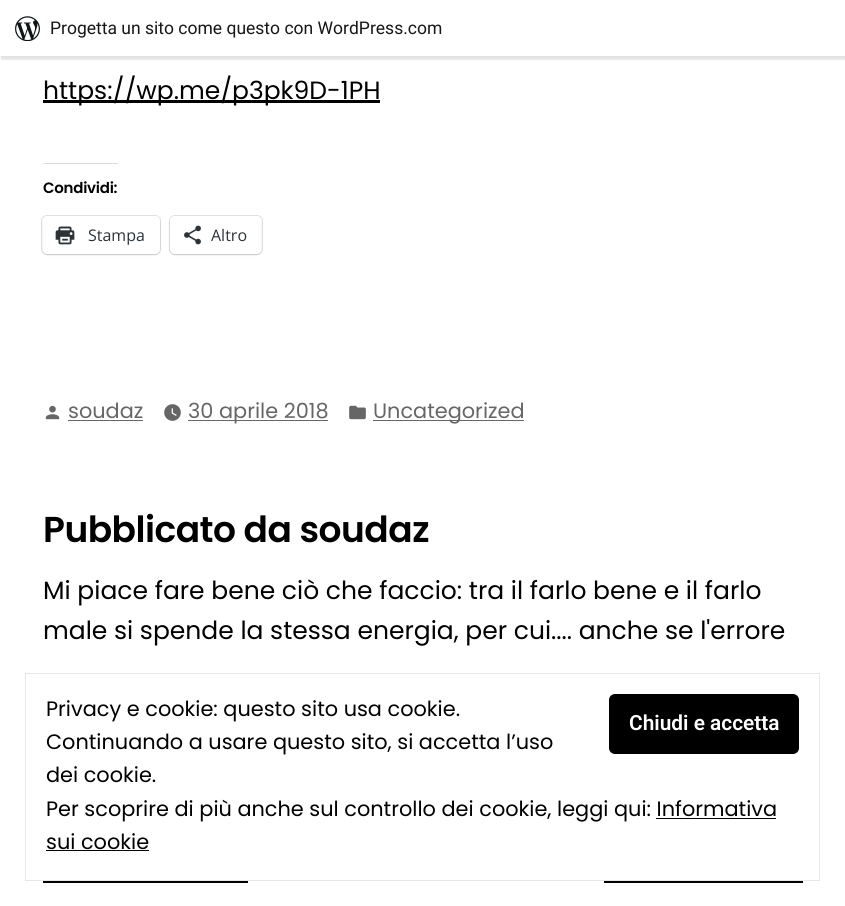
#include <cairo.h>
#include <math.h>
#include <stddef.h>

static cairo_t *c;
static void C(unsigned color){cairo_set_source_rgb(c, (color >> 16) / 255.0, (color >> 8 & 255) / 255.0, (color & 255) / 255.0);}
static void F(const char *family, double size, int italic, int bold){cairo_select_font_face(c, family, italic ? CAIRO_FONT_SLANT_ITALIC : CAIRO_FONT_SLANT_NORMAL,bold ? CAIRO_FONT_WEIGHT_BOLD : CAIRO_FONT_WEIGHT_NORMAL);cairo_set_font_size(c, size);}
static void T(double x, double y, const char *s){cairo_move_to(c, x, y);cairo_show_text(c, s);}
static void L(double x, double y, const char *s, double letter, double word){cairo_move_to(c, x, y);while (*s) {char ch[5] = {0};int n = 0;do ch[n++] = *s++; while ((*s & 0xC0) == 0x80);cairo_show_text(c, ch);cairo_rel_move_to(c, letter + word * (*ch == ' '), 0);}}
static void R(double x, double y, double w, double h){cairo_rectangle(c, x, y, w, h);cairo_fill(c);}
static void Q(double x, double y, double w, double h, double r){cairo_new_sub_path(c);cairo_arc(c, x + w - r, y + h - r, r, 0, M_PI / 2);cairo_arc(c, x + r, y + h - r, r, M_PI / 2, M_PI);cairo_arc(c, x + r, y + r, r, M_PI, 1.5 * M_PI);cairo_arc(c, x + w - r, y + r, r, 1.5 * M_PI, 2 * M_PI);cairo_close_path(c);}
static void S(double x, double y, double w, double h, double r, double blur, double alpha){cairo_push_group_with_content(c, CAIRO_CONTENT_ALPHA);cairo_set_operator(c, CAIRO_OPERATOR_SOURCE);for (int i = 15; i >= -15 && fmin(w, h) + blur * i / 3 > 0; i -= 2) {double e = blur * i / 6;cairo_set_source_rgba(c, 0, 0, 0, alpha * erfc((i - 1) / 8.5) / 2);Q(x - e, y - e, w + 2 * e, h + 2 * e, fmax(0, fmin(r + e + blur * .6, fmin(w, h) / 2 + e)));cairo_fill(c);}cairo_pattern_t *soft = cairo_pop_group(c);cairo_mask(c, soft);cairo_pattern_destroy(soft);}
static void I(const char *path, double x, double y, double w, double h){cairo_surface_t *image = cairo_image_surface_create_from_png(path);cairo_save(c);cairo_set_source_surface(c, image, x, y);cairo_rectangle(c, x, y, w, h);cairo_fill(c);cairo_restore(c);cairo_surface_destroy(image);}
int main(void) {
cairo_surface_t *surface = cairo_image_surface_create(CAIRO_FORMAT_RGB24, 845, 906);
c = cairo_create(surface);
cairo_font_options_t *options = cairo_font_options_create();
cairo_font_options_set_hint_metrics(options, CAIRO_HINT_METRICS_OFF);
cairo_font_options_set_hint_style(options, CAIRO_HINT_STYLE_NONE);
cairo_set_font_options(c, options);
cairo_set_miter_limit(c, 4);
C(0xffffff);
cairo_paint(c);
C(0x000000);
S(0,1,845,57,0,1,.05);
cairo_set_source_rgba(c,0,0,0,0.08);
cairo_new_path(c);
cairo_move_to(c,1,56);
cairo_line_to(c,1,60);
cairo_line_to(c,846,60);
cairo_line_to(c,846,4);
cairo_line_to(c,845,4);
cairo_line_to(c,845,56);
cairo_close_path(c);
cairo_fill(c);
C(0xffffff);
R(0,0,845,56);
I("1.png",15,16,25,25);
F("Roboto",17.5,0,0);
C(0x171717);
T(50,34,"Progetta un sito come questo con WordPress.com");
C(0x000000);
R(43,100,337,3);
F("Poppins",25,0,0);
T(43,99,"https://wp.me/p3pk9D-1PH");
C(0xdcdcde);
R(43,163,75,1);
F("Poppins SemiBold",15,0,0);
C(0x000000);
L(43,193,"Condividi:",-.25,0);
Q(41.5,215.5,119,39,5.5);
C(0xe0e0e0);
cairo_set_line_width(c,1);
cairo_stroke(c);
C(0x000000);
S(43,218,117,37,5,1,.12);
C(0xffffff);
Q(43,216,117,38,5);
cairo_fill(c);
I("2.png",55,226,20,19);
F("Open Sans",16,0,0);
C(0x2c3338);
T(88,241,"Stampa");
Q(169.5,215.5,93,39,5.5);
C(0xe0e0e0);
cairo_stroke(c);
C(0x000000);
S(170,218,91,37,5,1,.12);
C(0xffffff);
Q(170,216,91,38,5);
cairo_fill(c);
I("3.png",184,225,17,20);
C(0x2c3338);
T(211,241,"Altro");
I("4.png",45,405,15,15);
F("Poppins",20.85,0,0);
C(0x666666);
T(68,418,"soudaz");
R(68,420,75,1);
I("5.png",164,404,17,17);
R(188,420,140,1);
T(188,418,"30 aprile 2018");
I("6.png",349,405,17,15);
R(373,420,151,1);
T(373,418,"Uncategorized");
F("Poppins SemiBold",36,0,0);
C(0x000000);
L(43,542,"Pubblicato da soudaz",-.5,0);
F("Poppins",25,0,0);
T(43,599,"Mi piace fare bene ciò che faccio: tra il farlo bene e il farlo");
T(43,639,"male si spende la stessa energia, per cui.... anche se l'errore");
R(43,881,205,2);
R(604,881,199,2);
cairo_rectangle(c,25.5,673.5,794,207);
C(0xe6e6e6);
cairo_stroke(c);
F("Poppins",20.85,0,0);
C(0x000000);
T(46,716,"Privacy e cookie: questo sito usa cookie.");
Q(609,694,190,60,6);
cairo_fill(c);
F("Roboto SemiBold",20.85,0,0);
C(0xffffff);
T(629,730,"Chiudi e accetta");
F("Poppins",20.85,0,0);
C(0x000000);
T(46,749,"Continuando a usare questo sito, si accetta l’uso");
T(46,782,"dei cookie.");
T(46,816,"Per scoprire di più anche sul controllo dei cookie, leggi qui: Informativa");
T(46,849,"sui cookie");
C(0x010101);
R(656,818,120,1);
R(46,850,103,1);
cairo_surface_write_to_png(surface, "o.png");
cairo_font_options_destroy(options);
cairo_destroy(c);
cairo_surface_destroy(surface);
return 0;
}
